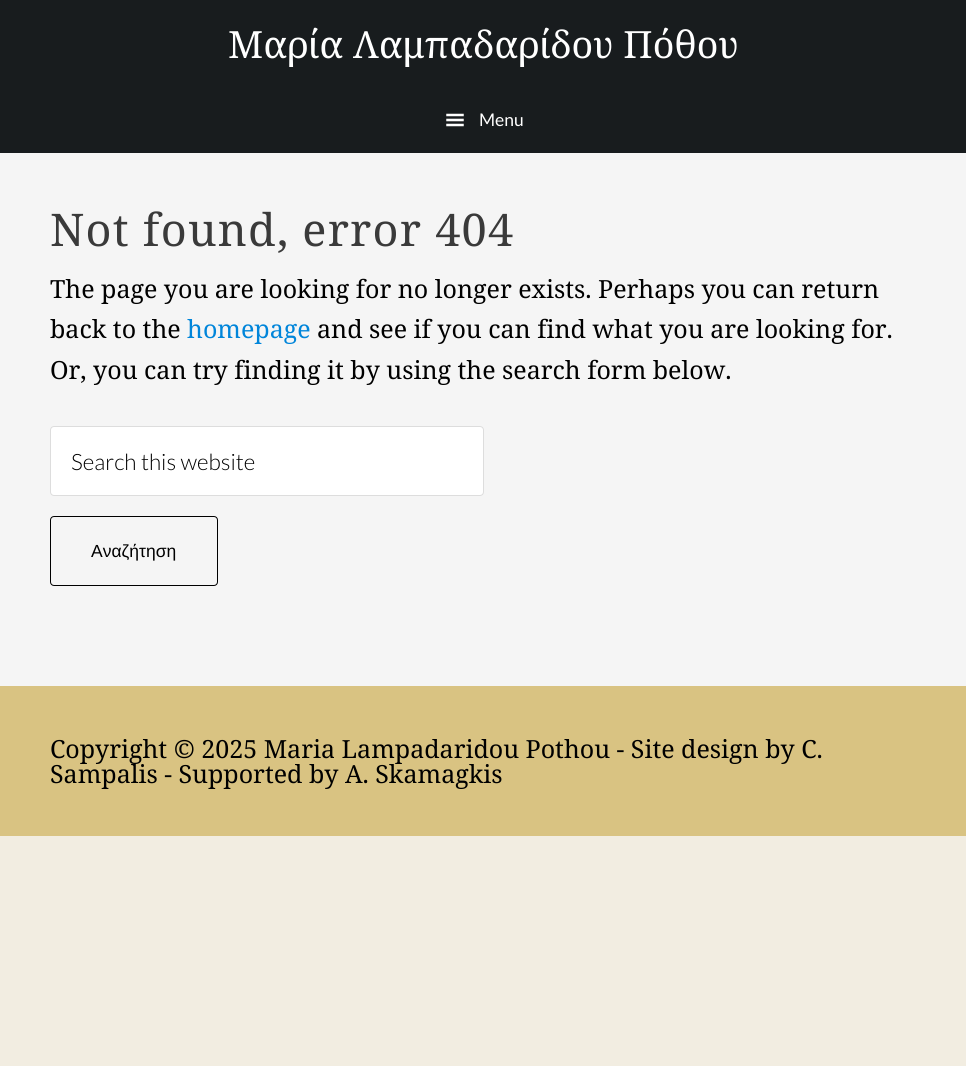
#include <cairo.h>
#include <math.h>
#include <stddef.h>

static cairo_t *c;
static void C(unsigned color){cairo_set_source_rgb(c, (color >> 16) / 255.0, (color >> 8 & 255) / 255.0, (color & 255) / 255.0);}
static void F(const char *family, double size, int italic, int bold){cairo_select_font_face(c, family, italic ? CAIRO_FONT_SLANT_ITALIC : CAIRO_FONT_SLANT_NORMAL,bold ? CAIRO_FONT_WEIGHT_BOLD : CAIRO_FONT_WEIGHT_NORMAL);cairo_set_font_size(c, size);}
static void T(double x, double y, const char *s){cairo_move_to(c, x, y);cairo_show_text(c, s);}
static void L(double x, double y, const char *s, double letter, double word){cairo_move_to(c, x, y);while (*s) {char ch[5] = {0};int n = 0;do ch[n++] = *s++; while ((*s & 0xC0) == 0x80);cairo_show_text(c, ch);cairo_rel_move_to(c, letter + word * (*ch == ' '), 0);}}
static void R(double x, double y, double w, double h){cairo_rectangle(c, x, y, w, h);cairo_fill(c);}
static void Q(double x, double y, double w, double h, double r){cairo_new_sub_path(c);cairo_arc(c, x + w - r, y + h - r, r, 0, M_PI / 2);cairo_arc(c, x + r, y + h - r, r, M_PI / 2, M_PI);cairo_arc(c, x + r, y + r, r, M_PI, 1.5 * M_PI);cairo_arc(c, x + w - r, y + r, r, 1.5 * M_PI, 2 * M_PI);cairo_close_path(c);}
static void I(const char *path, double x, double y, double w, double h){cairo_surface_t *image = cairo_image_surface_create_from_png(path);cairo_save(c);cairo_set_source_surface(c, image, x, y);cairo_rectangle(c, x, y, w, h);cairo_fill(c);cairo_restore(c);cairo_surface_destroy(image);}
int main(void) {
cairo_surface_t *surface = cairo_image_surface_create(CAIRO_FORMAT_RGB24, 966, 1066);
c = cairo_create(surface);
cairo_font_options_t *options = cairo_font_options_create();
cairo_font_options_set_hint_metrics(options, CAIRO_HINT_METRICS_OFF);
cairo_font_options_set_hint_style(options, CAIRO_HINT_STYLE_NONE);
cairo_set_font_options(c, options);
cairo_set_miter_limit(c, 4);
C(0xf2ede1);
cairo_paint(c);
C(0x181c1e);
R(0,0,966,153);
F("Noto Serif",37.5,0,0);
C(0xffffff);
T(228,58,"Μαρία Λαμπαδαρίδου Πόθου");
I("1.png",446,113,18,14);
F("Lato",17.5,0,0);
T(479,126,"Menu");
C(0xf5f5f5);
R(0,153,966,533);
F("Noto Serif",45,0,0);
C(0x3a3a3a);
L(50,246,"Not found, error 404",1.25,0);
F("Noto Serif",25,0,0);
C(0x000000);
T(50,298,"The page you are looking for no longer exists. Perhaps you can return");
T(50,338,"back to the");
C(0x0085da);
T(187,338,"homepage");
C(0x000000);
T(317,338,"and see if you can find what you are looking for.");
T(50,379,"Or, you can try finding it by using the search form below.");
C(0xffffff);
Q(50.5,426.5,433,69,3.5);
cairo_fill_preserve(c);
C(0xdddddd);
cairo_set_line_width(c,1);
cairo_stroke(c);
F("Lato Light",22.5,0,0);
C(0x000000);
T(71,470,"Search this website");
Q(50.5,516.5,167,69,3.5);
cairo_stroke(c);
F("Liberation Sans",17.5,0,0);
T(91,557,"Αναζήτηση");
C(0xd9c382);
R(0,686,966,150);
F("Noto Serif",25,0,0);
C(0x000000);
T(50,758,"Copyright © 2025 Maria Lampadaridou Pothou - Site design by C.");
T(50,783,"Sampalis - Supported by A. Skamagkis");
cairo_surface_write_to_png(surface, "o.png");
cairo_font_options_destroy(options);
cairo_destroy(c);
cairo_surface_destroy(surface);
return 0;
}
